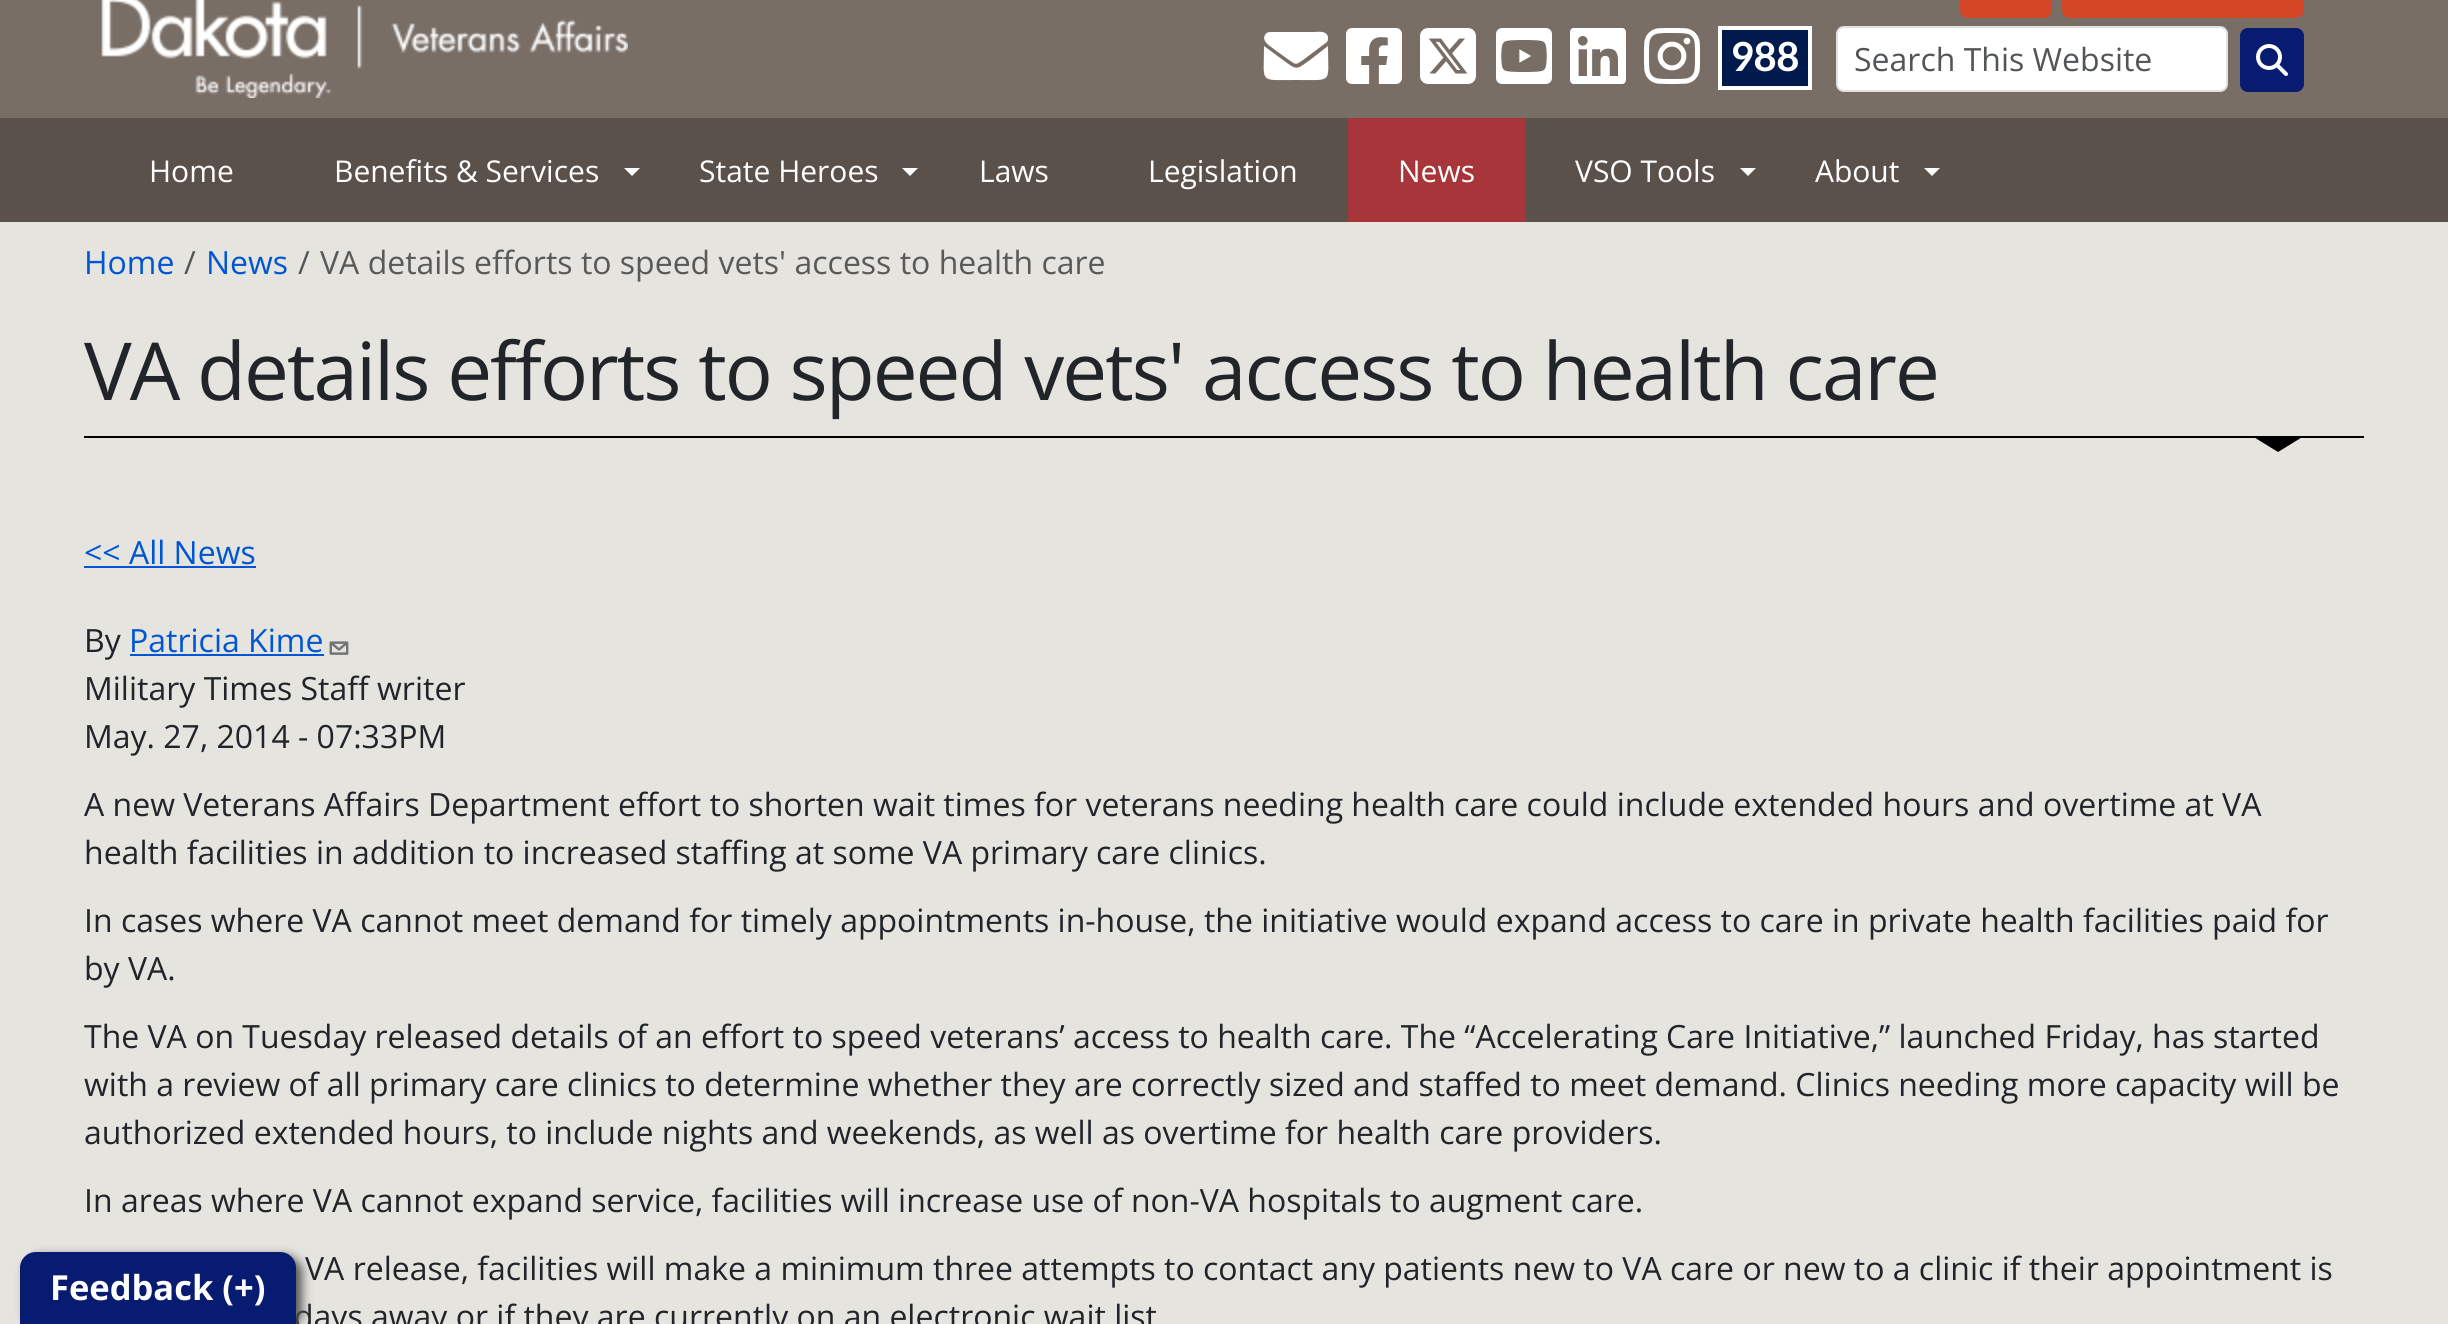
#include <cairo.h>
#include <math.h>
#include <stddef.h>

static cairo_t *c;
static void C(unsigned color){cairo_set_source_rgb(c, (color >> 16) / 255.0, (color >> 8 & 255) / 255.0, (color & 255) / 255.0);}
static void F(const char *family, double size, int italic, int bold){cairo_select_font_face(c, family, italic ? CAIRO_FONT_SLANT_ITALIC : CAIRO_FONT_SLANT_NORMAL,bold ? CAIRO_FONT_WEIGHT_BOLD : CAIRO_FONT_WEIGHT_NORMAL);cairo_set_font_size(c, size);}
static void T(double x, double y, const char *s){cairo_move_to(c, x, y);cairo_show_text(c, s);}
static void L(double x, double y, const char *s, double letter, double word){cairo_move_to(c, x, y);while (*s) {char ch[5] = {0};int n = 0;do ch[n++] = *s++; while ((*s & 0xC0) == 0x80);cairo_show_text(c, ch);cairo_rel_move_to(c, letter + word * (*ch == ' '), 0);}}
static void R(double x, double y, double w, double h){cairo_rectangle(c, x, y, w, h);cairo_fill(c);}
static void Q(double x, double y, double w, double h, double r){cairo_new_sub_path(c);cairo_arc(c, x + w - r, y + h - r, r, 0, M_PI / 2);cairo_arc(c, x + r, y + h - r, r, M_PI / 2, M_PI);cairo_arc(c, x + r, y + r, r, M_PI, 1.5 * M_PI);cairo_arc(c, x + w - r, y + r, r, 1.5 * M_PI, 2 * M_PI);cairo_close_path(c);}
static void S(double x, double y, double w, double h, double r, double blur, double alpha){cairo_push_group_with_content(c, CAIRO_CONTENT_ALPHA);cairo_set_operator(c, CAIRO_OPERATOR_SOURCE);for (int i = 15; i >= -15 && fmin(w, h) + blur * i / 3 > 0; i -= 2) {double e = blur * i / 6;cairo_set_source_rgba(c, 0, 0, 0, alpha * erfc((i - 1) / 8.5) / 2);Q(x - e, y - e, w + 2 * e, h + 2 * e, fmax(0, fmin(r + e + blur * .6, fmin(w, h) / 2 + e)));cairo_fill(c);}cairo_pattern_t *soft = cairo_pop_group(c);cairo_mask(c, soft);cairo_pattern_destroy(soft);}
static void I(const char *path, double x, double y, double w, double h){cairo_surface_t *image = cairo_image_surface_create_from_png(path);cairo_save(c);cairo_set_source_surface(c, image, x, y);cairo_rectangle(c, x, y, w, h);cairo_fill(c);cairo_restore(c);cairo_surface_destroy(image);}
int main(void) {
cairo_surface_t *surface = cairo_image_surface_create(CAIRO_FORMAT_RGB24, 2448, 1324);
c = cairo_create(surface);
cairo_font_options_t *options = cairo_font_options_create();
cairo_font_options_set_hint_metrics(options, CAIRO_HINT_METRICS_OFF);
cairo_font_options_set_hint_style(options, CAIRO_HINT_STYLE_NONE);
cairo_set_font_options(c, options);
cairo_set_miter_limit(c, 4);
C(0xe5e4df);
cairo_paint(c);
C(0x796e66);
R(0,0,2448,118);
I("1.png",101,0,527,98);
C(0xd34727);
Q(1960,-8,92,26,8);
cairo_fill(c);
Q(2062,-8,242,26,8);
cairo_fill(c);
C(0xffffff);
cairo_new_path(c);
cairo_move_to(c,1270,32);
cairo_curve_to(c,1268,32,1266,33,1265,35);
cairo_curve_to(c,1261,42,1272,47,1275,50);
cairo_line_to(c,1289,60);
cairo_curve_to(c,1296,65,1296,65,1303,60);
cairo_line_to(c,1327,42);
cairo_curve_to(c,1329,39,1328,34,1325,33);
cairo_curve_to(c,1322,31,1316,32,1313,32);
cairo_close_path(c);
cairo_move_to(c,1264,46);
cairo_curve_to(c,1264,84,1258,80,1296,80);
cairo_curve_to(c,1334,80,1328,84,1328,46);
cairo_line_to(c,1310,60);
cairo_curve_to(c,1298,68,1298,71,1287,63);
cairo_close_path(c);
cairo_fill(c);
I("2.png",1346,28,56,56);
I("3.png",1420,28,56,56);
I("4.png",1496,28,56,56);
I("5.png",1570,28,56,56);
I("6.png",1644,28,56,56);
C(0x001a4e);
cairo_rectangle(c,1720,28,90,60);
cairo_fill_preserve(c);
C(0xffffff);
cairo_set_line_width(c,4);
cairo_stroke(c);
F("Aleo",40,0,1);
T(1732,71,"988");
Q(1837,27,390,64,7);
cairo_fill_preserve(c);
C(0xdee2e6);
cairo_set_line_width(c,2);
cairo_stroke(c);
F("Open Sans",32,0,0);
C(0x525557);
T(1854,71,"Search This Website");
C(0x071c70);
Q(2240,28,64,64,8);
cairo_fill(c);
I("7.png",2256,44,32,32);
C(0x5a514b);
R(0,118,2448,104);
F("Open Sans",30,0,0);
C(0xffffff);
T(149,182,"Home");
T(334,182,"Benefits & Services");
cairo_new_path(c);
cairo_move_to(c,624,168);
cairo_line_to(c,640,168);
cairo_line_to(c,632,176);
cairo_close_path(c);
cairo_fill(c);
T(699,182,"State Heroes");
cairo_new_path(c);
cairo_move_to(c,902,168);
cairo_line_to(c,918,168);
cairo_line_to(c,910,176);
cairo_close_path(c);
cairo_fill(c);
T(979,182,"Laws");
T(1148,182,"Legislation");
C(0xa8353a);
R(1348,118,178,104);
C(0xffffff);
T(1398,182,"News");
T(1575,182,"VSO Tools");
cairo_new_path(c);
cairo_move_to(c,1740,168);
cairo_line_to(c,1756,168);
cairo_line_to(c,1748,176);
cairo_close_path(c);
cairo_fill(c);
T(1815,182,"About");
cairo_new_path(c);
cairo_move_to(c,1924,168);
cairo_line_to(c,1940,168);
cairo_line_to(c,1932,176);
cairo_close_path(c);
cairo_fill(c);
F("Open Sans",32,0,0);
C(0x0056d2);
T(84,274,"Home");
C(0x525557);
T(184,274,"/");
C(0x0056d2);
T(206,274,"News");
C(0x525557);
T(298,274,"/");
C(0x595959);
T(320,274,"VA details efforts to speed vets' access to health care");
C(0x000000);
R(84,436,2280,2);
F("Open Sans",80,0,0);
C(0x212529);
L(84,400,"VA details efforts to speed vets' access to health care",-2,0);
C(0x000000);
cairo_new_path(c);
cairo_move_to(c,2252,436);
cairo_line_to(c,2304,436);
cairo_line_to(c,2278,452);
cairo_close_path(c);
cairo_fill(c);
F("Open Sans",32,0,0);
C(0x0056d2);
T(84,564,"<< All News");
R(84,566,172,2);
C(0x212529);
T(84,652,"By");
C(0x0056d2);
T(129,652,"Patricia Kime");
R(130,654,194,2);
I("8.png",329,641,20,14);
C(0x212529);
T(84,700,"Military Times Staff writer");
T(84,748,"May. 27, 2014 - 07:33PM");
T(84,816,"A new Veterans Affairs Department effort to shorten wait times for veterans needing health care could include extended hours and overtime at VA");
T(84,864,"health facilities in addition to increased staffing at some VA primary care clinics.");
T(84,932,"In cases where VA cannot meet demand for timely appointments in-house, the initiative would expand access to care in private health facilities paid for");
T(84,980,"by VA.");
T(84,1048,"The VA on Tuesday released details of an effort to speed veterans’ access to health care. The “Accelerating Care Initiative,” launched Friday, has started");
T(84,1096,"with a review of all primary care clinics to determine whether they are correctly sized and staffed to meet demand. Clinics needing more capacity will be");
T(84,1144,"authorized extended hours, to include nights and weekends, as well as overtime for health care providers.");
T(84,1212,"In areas where VA cannot expand service, facilities will increase use of non-VA hospitals to augment care.");
T(305,1280,"VA release, facilities will make a minimum three attempts to contact any patients new to VA care or new to a clinic if their appointment is");
T(294,1328,"days away or if they are currently on an electronic wait list");
C(0x555555);
S(26,1256,276,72,16,5,1);
C(0x071c70);
cairo_new_path(c);
cairo_move_to(c,36,1252);
cairo_line_to(c,280,1252);
cairo_curve_to(c,289,1252,296,1259,296,1268);
cairo_line_to(c,296,1324);
cairo_line_to(c,20,1324);
cairo_line_to(c,20,1268);
cairo_curve_to(c,20,1259,27,1252,36,1252);
cairo_close_path(c);
cairo_fill(c);
F("Open Sans",34.5,0,1);
C(0xffffff);
T(50,1300,"Feedback (+)");
cairo_surface_write_to_png(surface, "o.png");
cairo_font_options_destroy(options);
cairo_destroy(c);
cairo_surface_destroy(surface);
return 0;
}
